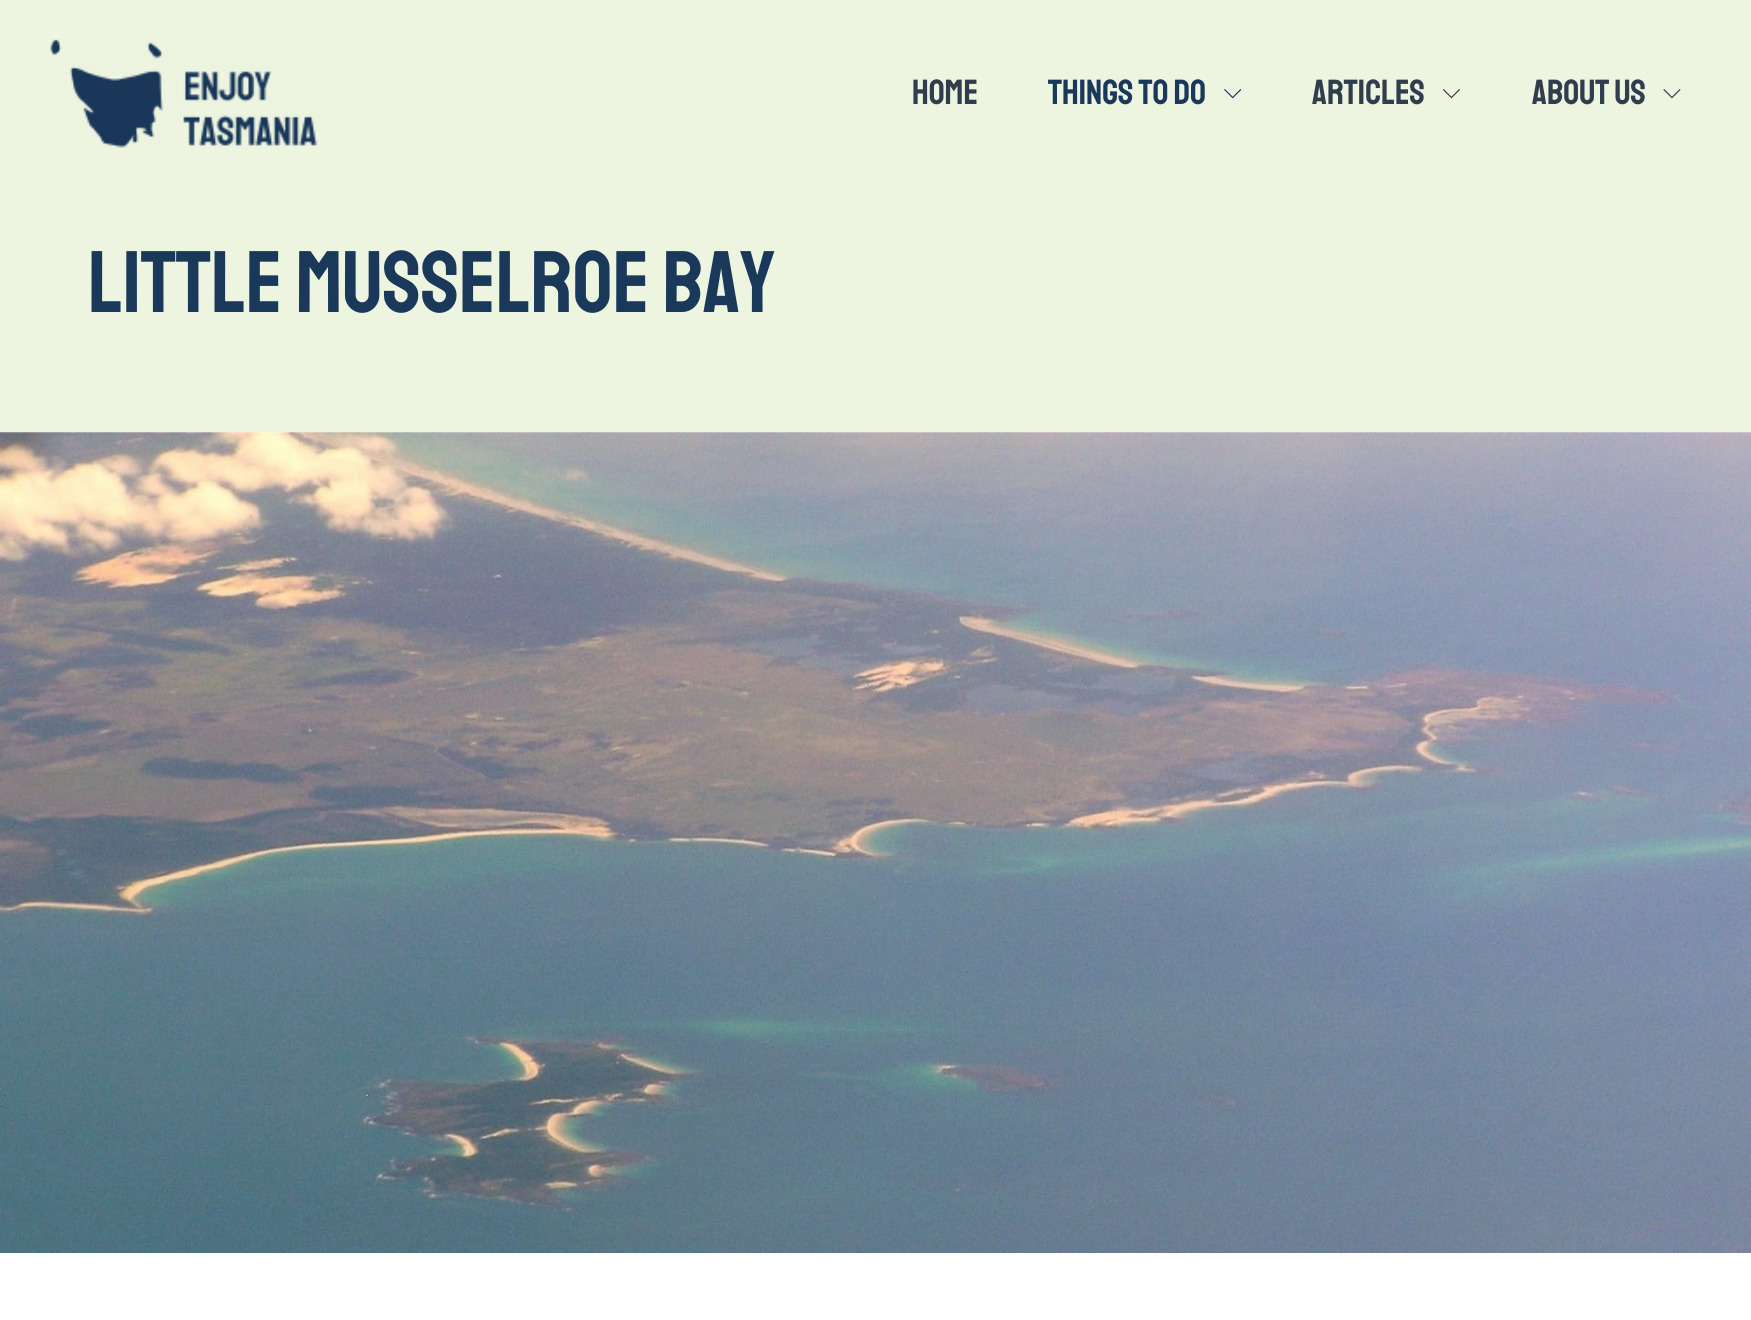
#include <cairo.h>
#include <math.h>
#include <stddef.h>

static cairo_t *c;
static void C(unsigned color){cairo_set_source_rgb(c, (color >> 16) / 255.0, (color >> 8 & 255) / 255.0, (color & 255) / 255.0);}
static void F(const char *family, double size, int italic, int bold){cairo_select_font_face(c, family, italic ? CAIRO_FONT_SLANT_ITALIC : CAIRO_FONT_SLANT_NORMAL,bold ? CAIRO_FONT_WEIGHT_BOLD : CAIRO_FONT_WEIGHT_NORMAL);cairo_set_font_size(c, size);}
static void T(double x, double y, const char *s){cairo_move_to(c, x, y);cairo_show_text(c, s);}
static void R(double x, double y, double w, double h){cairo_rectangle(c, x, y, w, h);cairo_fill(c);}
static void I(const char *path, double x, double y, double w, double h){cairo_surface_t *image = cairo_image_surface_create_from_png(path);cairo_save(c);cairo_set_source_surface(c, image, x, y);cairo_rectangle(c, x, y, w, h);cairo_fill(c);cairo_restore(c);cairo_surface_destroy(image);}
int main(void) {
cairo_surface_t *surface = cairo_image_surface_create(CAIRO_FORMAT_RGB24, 1751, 1320);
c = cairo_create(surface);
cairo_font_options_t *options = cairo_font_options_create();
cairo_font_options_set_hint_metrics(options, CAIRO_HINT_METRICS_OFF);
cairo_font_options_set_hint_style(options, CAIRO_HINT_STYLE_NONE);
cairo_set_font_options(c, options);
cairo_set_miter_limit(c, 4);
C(0xffffff);
cairo_paint(c);
C(0xedf5e1);
R(0,0,1751,432);
I("1.png",50,39,268,109);
F("Staatliches",35,0,0);
C(0x303d4d);
T(912,104,"Home");
C(0x1a385a);
T(1048,104,"Things to do");
I("2.png",1224,89,18,10);
C(0x303d4d);
T(1312,104,"Articles");
I("3.png",1443,89,17,10);
T(1532,104,"About Us");
I("4.png",1663,89,18,10);
F("Staatliches",87.5,0,0);
C(0x1a385a);
T(88,312,"Little Musselroe Bay");
I("5.png",0,432,1751,821);
cairo_surface_write_to_png(surface, "o.png");
cairo_font_options_destroy(options);
cairo_destroy(c);
cairo_surface_destroy(surface);
return 0;
}
